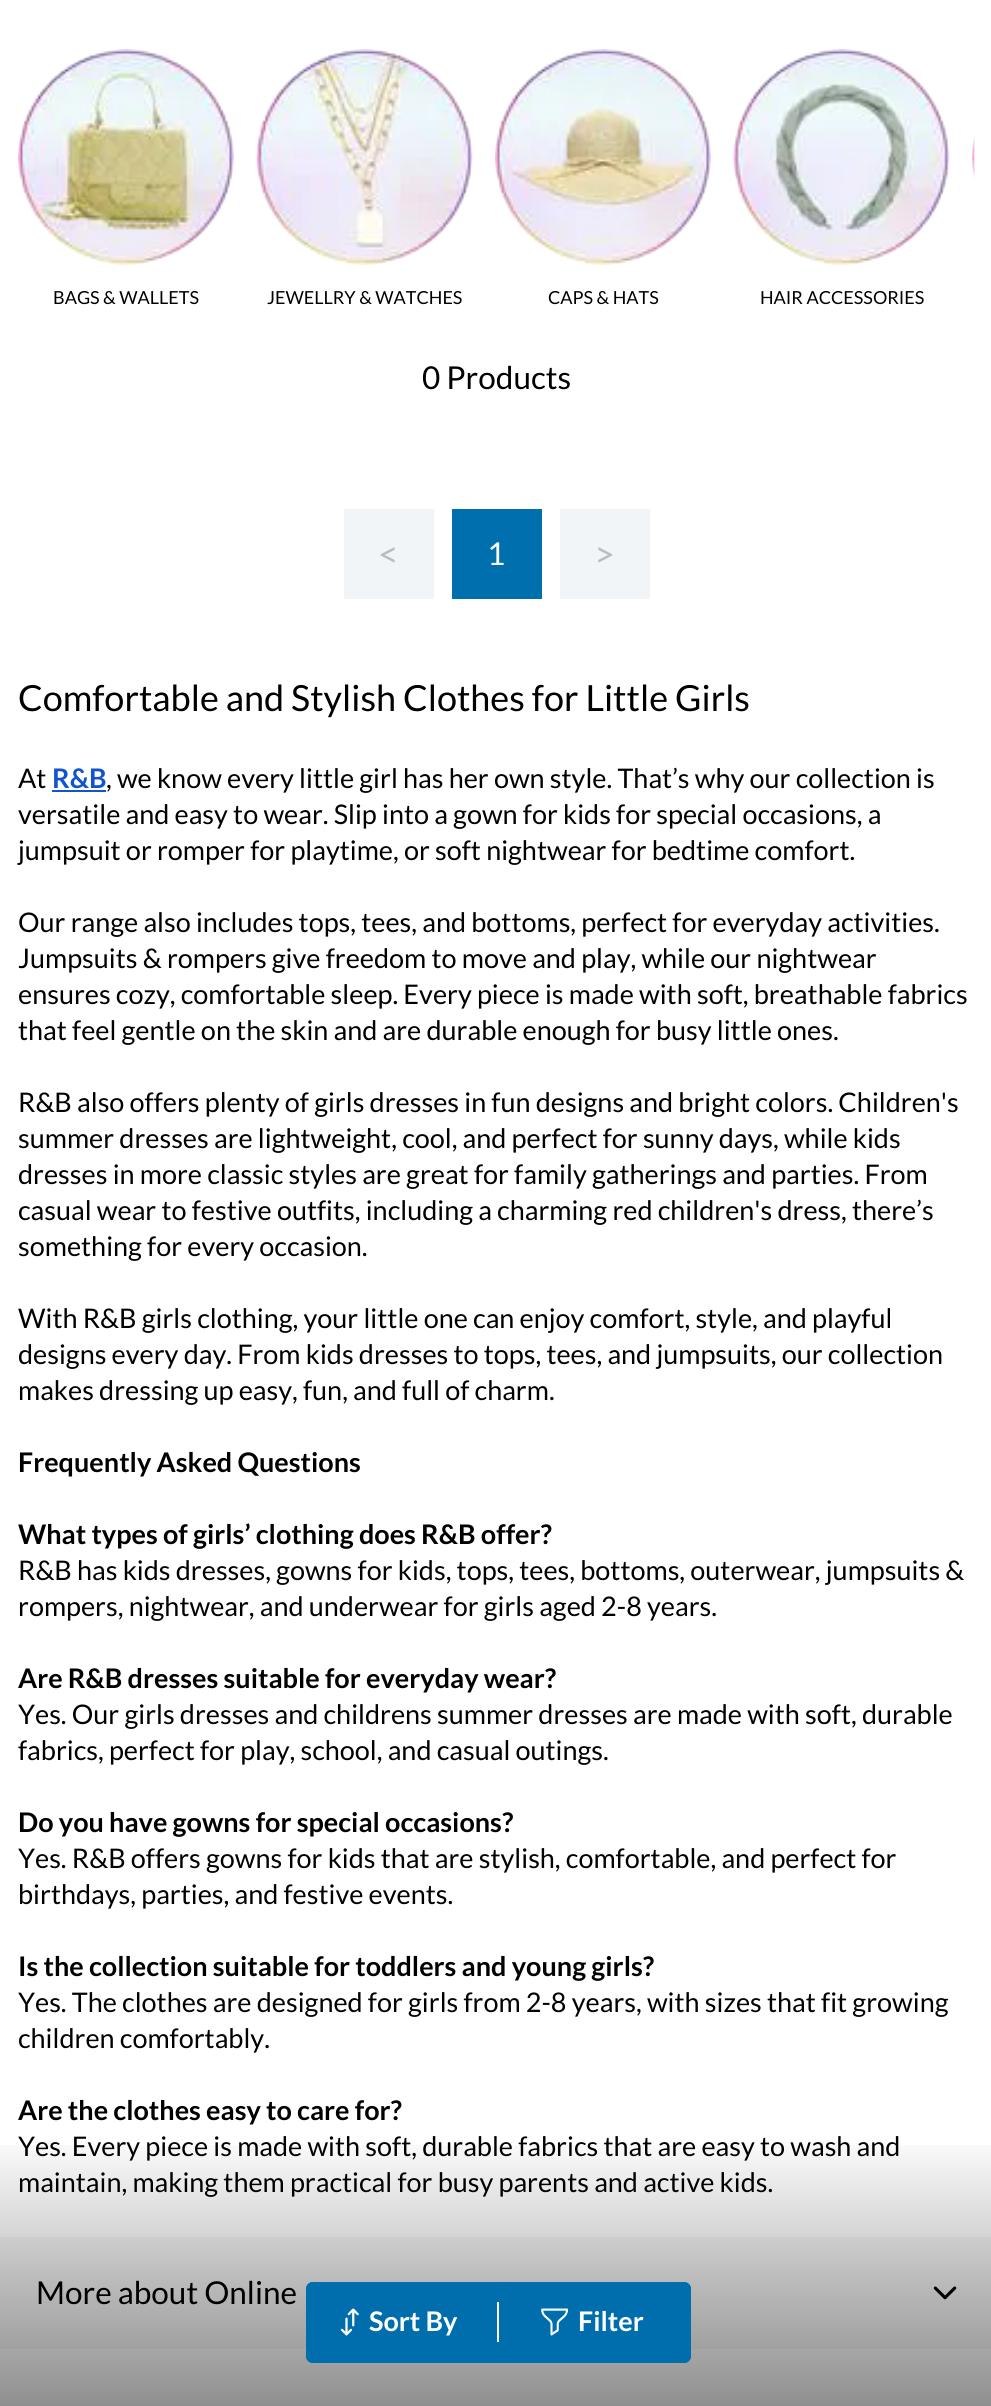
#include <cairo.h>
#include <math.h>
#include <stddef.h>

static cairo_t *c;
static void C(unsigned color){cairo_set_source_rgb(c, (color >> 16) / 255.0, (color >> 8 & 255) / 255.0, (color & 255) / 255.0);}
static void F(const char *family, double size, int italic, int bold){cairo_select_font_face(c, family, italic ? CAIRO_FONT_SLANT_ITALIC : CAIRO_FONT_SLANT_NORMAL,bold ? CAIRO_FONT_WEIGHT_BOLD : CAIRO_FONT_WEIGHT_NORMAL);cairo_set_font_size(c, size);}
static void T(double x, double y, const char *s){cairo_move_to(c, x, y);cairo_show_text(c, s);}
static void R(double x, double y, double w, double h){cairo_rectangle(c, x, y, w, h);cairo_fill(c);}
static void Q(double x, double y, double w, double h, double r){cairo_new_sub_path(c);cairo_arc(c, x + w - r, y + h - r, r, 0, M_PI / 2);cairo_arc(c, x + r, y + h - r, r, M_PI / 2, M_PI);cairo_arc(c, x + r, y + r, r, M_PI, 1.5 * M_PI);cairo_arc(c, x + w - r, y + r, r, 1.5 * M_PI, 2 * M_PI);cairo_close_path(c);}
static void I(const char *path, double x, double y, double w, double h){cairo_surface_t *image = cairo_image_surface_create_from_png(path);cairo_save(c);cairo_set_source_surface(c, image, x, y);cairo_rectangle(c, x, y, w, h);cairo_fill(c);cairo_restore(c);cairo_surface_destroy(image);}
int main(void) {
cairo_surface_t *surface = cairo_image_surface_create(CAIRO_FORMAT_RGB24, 991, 2406);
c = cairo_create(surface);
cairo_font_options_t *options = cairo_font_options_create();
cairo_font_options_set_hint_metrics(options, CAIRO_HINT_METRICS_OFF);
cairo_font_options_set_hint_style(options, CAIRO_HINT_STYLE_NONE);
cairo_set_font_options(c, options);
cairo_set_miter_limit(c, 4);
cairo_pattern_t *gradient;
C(0xffffff);
cairo_paint(c);
I("1.png",972,135,3,44);
I("2.png",18,49,216,216);
F("Lato",18,0,0);
C(0x000000);
T(53,304,"BAGS & WALLETS");
I("3.png",256,49,217,216);
T(267,304,"JEWELLRY & WATCHES");
I("4.png",495,49,216,216);
T(548,304,"CAPS & HATS");
I("5.png",733,49,217,216);
T(760,304,"HAIR ACCESSORIES");
F("Lato",31.5,0,0);
T(422,389,"0 Products");
F("Lato",27,0,0);
T(18,2156,"Yes. Every piece is made with soft, durable fabrics that are easy to wash and");
T(18,2192,"maintain, making them practical for busy parents and active kids.");
C(0xf6f6f6);
R(0,2237,991,112);
F("Lato",31.5,0,0);
C(0x000000);
T(36,2304,"More about Online");
I("8.png",933,2286,24,14);
gradient = cairo_pattern_create_linear(496,2126,496,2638);
cairo_pattern_add_color_stop_rgba(gradient,.01,0,0,0,0);
cairo_pattern_add_color_stop_rgba(gradient,.88,0,0,0,.71);
cairo_pattern_add_color_stop_rgba(gradient,1,0,0,0,0);
cairo_set_source(c,gradient);
cairo_pattern_destroy(gradient);
R(0,2145,991,261);
C(0x006ead);
Q(306,2282,385,81,7);
cairo_fill(c);
Q(307,2283,189,79,6);
cairo_fill_preserve(c);
cairo_stroke(c);
I("6.png",340,2308,19,28);
F("Lato",27,0,1);
C(0xffffff);
T(369,2331,"Sort By");
R(497,2302,2,40);
C(0x006ead);
Q(501,2283,189,79,6);
cairo_fill_preserve(c);
cairo_stroke(c);
I("7.png",541,2308,28,28);
C(0xffffff);
T(578,2331,"Filter");
C(0xf1f5f7);
R(344,509,90,90);
F("Lato",36,0,0);
C(0xb9bdbf);
T(378,567,"<");
C(0x006fae);
R(452,509,90,90);
F("Lato",31.5,0,0);
C(0xffffff);
T(487,565,"1");
C(0xf1f5f7);
R(560,509,90,90);
F("Lato",36,0,0);
C(0xb9bdbf);
T(594,567,">");
C(0x000000);
T(18,711,"Comfortable and Stylish Clothes for Little Girls");
F("Lato",27,0,0);
T(18,788,"At");
F("Lato",27,0,1);
C(0x1155cc);
T(52,788,"R&B");
R(52,790,54,2);
F("Lato",27,0,0);
C(0x000000);
T(106,788,", we know every little girl has her own style. That’s why our collection is");
T(18,824,"versatile and easy to wear. Slip into a gown for kids for special occasions, a");
T(18,860,"jumpsuit or romper for playtime, or soft nightwear for bedtime comfort.");
T(18,932,"Our range also includes tops, tees, and bottoms, perfect for everyday activities.");
T(18,968,"Jumpsuits & rompers give freedom to move and play, while our nightwear");
T(18,1004,"ensures cozy, comfortable sleep. Every piece is made with soft, breathable fabrics");
T(18,1040,"that feel gentle on the skin and are durable enough for busy little ones.");
T(18,1112,"R&B also offers plenty of girls dresses in fun designs and bright colors. Children's");
T(18,1148,"summer dresses are lightweight, cool, and perfect for sunny days, while kids");
T(18,1184,"dresses in more classic styles are great for family gatherings and parties. From");
T(18,1220,"casual wear to festive outfits, including a charming red children's dress, there’s");
T(18,1256,"something for every occasion.");
T(18,1328,"With R&B girls clothing, your little one can enjoy comfort, style, and playful");
T(18,1364,"designs every day. From kids dresses to tops, tees, and jumpsuits, our collection");
T(18,1400,"makes dressing up easy, fun, and full of charm.");
F("Lato",27,0,1);
T(18,1472,"Frequently Asked Questions");
T(18,1544,"What types of girls’ clothing does R&B offer?");
F("Lato",27,0,0);
T(18,1580,"R&B has kids dresses, gowns for kids, tops, tees, bottoms, outerwear, jumpsuits &");
T(18,1616,"rompers, nightwear, and underwear for girls aged 2-8 years.");
F("Lato",27,0,1);
T(18,1688,"Are R&B dresses suitable for everyday wear?");
F("Lato",27,0,0);
T(18,1724,"Yes. Our girls dresses and childrens summer dresses are made with soft, durable");
T(18,1760,"fabrics, perfect for play, school, and casual outings.");
F("Lato",27,0,1);
T(18,1832,"Do you have gowns for special occasions?");
F("Lato",27,0,0);
T(18,1868,"Yes. R&B offers gowns for kids that are stylish, comfortable, and perfect for");
T(18,1904,"birthdays, parties, and festive events.");
F("Lato",27,0,1);
T(18,1976,"Is the collection suitable for toddlers and young girls?");
F("Lato",27,0,0);
T(18,2012,"Yes. The clothes are designed for girls from 2-8 years, with sizes that fit growing");
T(18,2048,"children comfortably.");
F("Lato",27,0,1);
T(18,2120,"Are the clothes easy to care for?");
cairo_surface_write_to_png(surface, "o.png");
cairo_font_options_destroy(options);
cairo_destroy(c);
cairo_surface_destroy(surface);
return 0;
}
